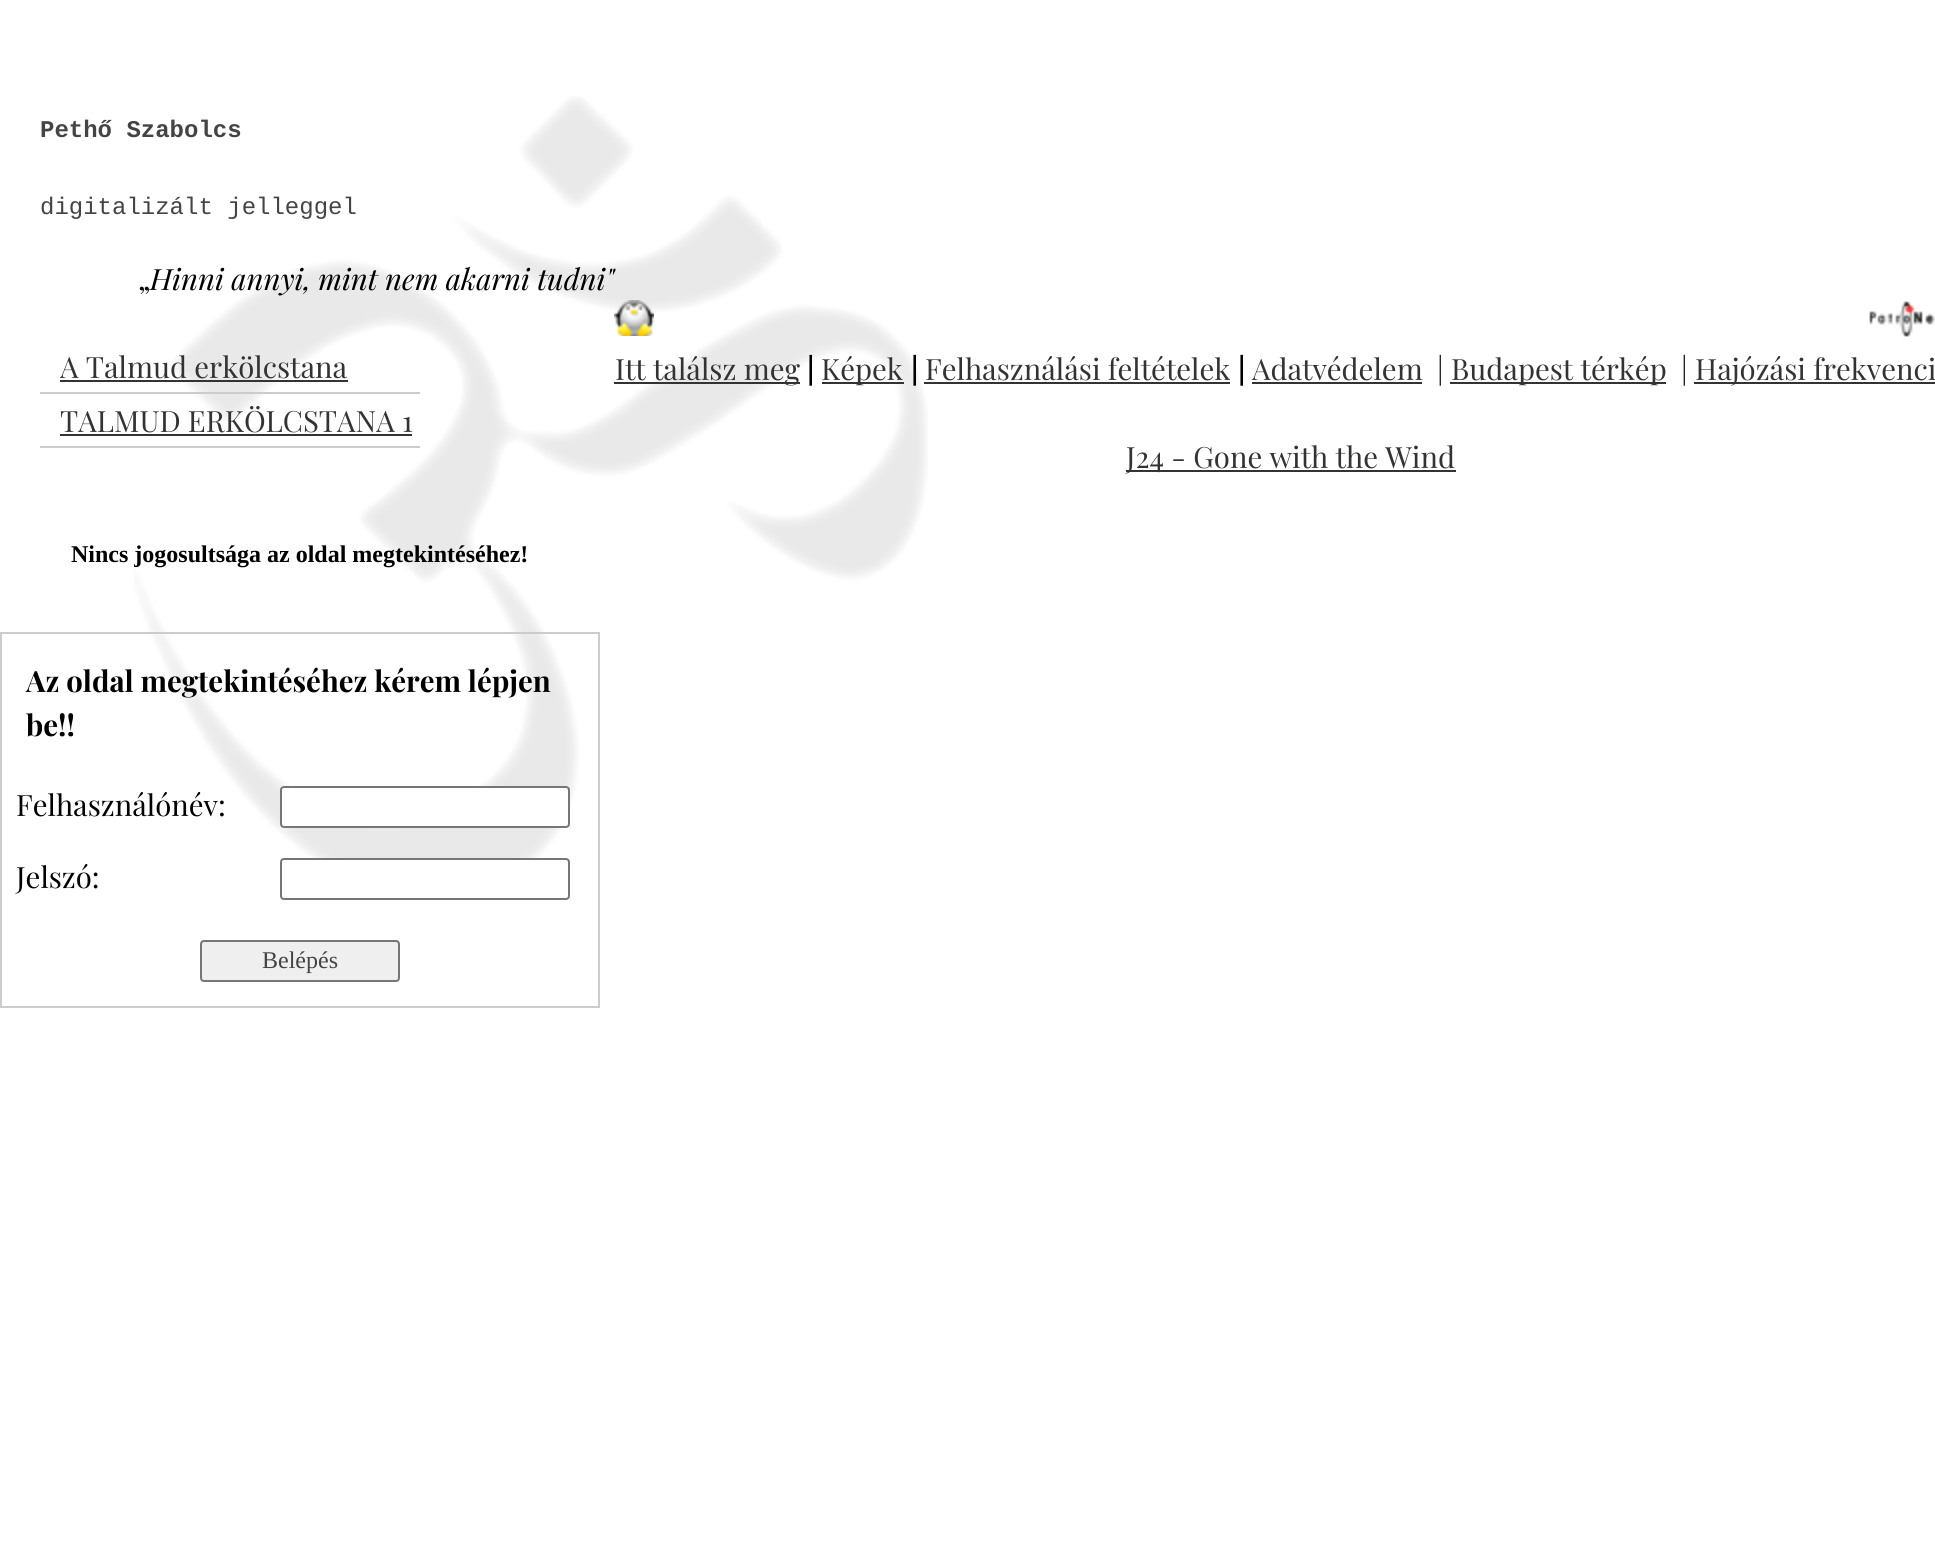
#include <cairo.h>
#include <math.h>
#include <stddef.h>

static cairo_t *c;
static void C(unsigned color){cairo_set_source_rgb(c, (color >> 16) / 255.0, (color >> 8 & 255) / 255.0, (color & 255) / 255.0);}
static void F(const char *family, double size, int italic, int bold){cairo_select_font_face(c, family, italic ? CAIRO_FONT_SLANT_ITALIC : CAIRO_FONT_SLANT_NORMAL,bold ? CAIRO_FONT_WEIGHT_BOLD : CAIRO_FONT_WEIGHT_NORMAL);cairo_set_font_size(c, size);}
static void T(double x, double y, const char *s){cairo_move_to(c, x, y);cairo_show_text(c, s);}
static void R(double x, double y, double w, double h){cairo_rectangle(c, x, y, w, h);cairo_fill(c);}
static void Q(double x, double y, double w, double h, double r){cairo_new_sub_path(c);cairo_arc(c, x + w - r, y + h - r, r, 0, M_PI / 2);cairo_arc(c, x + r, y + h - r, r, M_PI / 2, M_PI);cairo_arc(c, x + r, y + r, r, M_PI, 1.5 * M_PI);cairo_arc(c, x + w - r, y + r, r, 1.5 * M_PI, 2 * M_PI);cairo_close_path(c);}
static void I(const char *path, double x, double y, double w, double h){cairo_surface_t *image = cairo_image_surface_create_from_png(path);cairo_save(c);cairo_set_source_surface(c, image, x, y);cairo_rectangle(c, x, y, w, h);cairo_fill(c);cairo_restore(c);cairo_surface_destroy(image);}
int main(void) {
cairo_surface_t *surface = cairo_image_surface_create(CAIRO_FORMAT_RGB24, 1935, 1563);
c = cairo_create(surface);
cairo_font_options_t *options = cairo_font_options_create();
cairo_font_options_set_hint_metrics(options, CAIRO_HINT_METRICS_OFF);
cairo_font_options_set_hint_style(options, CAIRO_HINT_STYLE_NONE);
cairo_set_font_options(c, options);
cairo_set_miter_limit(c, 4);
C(0xffffff);
cairo_paint(c);
I("1.png",134,96,794,796);
F("Liberation Mono",24,0,1);
C(0x444444);
T(40,137,"Pethő Szabolcs");
F("Liberation Mono",24,0,0);
T(40,214,"digitalizált jelleggel");
F("Playfair Display",29.3,0,0);
C(0x000000);
T(138,290,"„");
F("Playfair Display",29.3,1,0);
T(150,290,"Hinni annyi, mint nem akarni tudni\"");
C(0xcccccc);
R(40,392,380,2);
F("Playfair Display",29.3,0,0);
C(0x333333);
T(60,378,"A Talmud erkölcstana");
R(60,380,288,2);
C(0xcccccc);
R(40,446,380,2);
C(0x333333);
T(60,432,"TALMUD ERKÖLCSTANA 1");
R(60,434,352,2);
F("Liberation Serif",24,0,1);
C(0x000000);
T(71,562,"Nincs jogosultsága az oldal megtekintéséhez!");
cairo_rectangle(c,1,633,598,374);
C(0xcccccc);
cairo_stroke(c);
F("Playfair Display",29.3,0,1);
C(0x000000);
T(26,692,"Az oldal megtekintéséhez kérem lépjen");
T(26,736,"be!!");
F("Playfair Display",29.3,0,0);
T(16,816,"Felhasználónév:");
C(0xffffff);
Q(281,787,288,40,3);
cairo_fill_preserve(c);
C(0x767676);
cairo_stroke(c);
C(0x000000);
T(16,888,"Jelszó:");
C(0xffffff);
Q(281,859,288,40,3);
cairo_fill_preserve(c);
C(0x767676);
cairo_stroke(c);
C(0xefefef);
Q(201,941,198,40,3);
cairo_fill_preserve(c);
C(0x767676);
cairo_stroke(c);
F("Liberation Serif",24,0,0);
C(0x444444);
T(262,968,"Belépés");
I("2.png",614,300,40,36);
I("3.png",1869,301,66,36);
C(0x333333);
R(614,382,186,2);
F("Playfair Display",29.3,0,0);
T(615,380,"Itt találsz meg");
F("Playfair Display",29.3,0,1);
C(0x000000);
T(807,380,"|");
C(0x333333);
R(822,382,82,2);
F("Playfair Display",29.3,0,0);
T(821,380,"Képek");
F("Playfair Display",29.3,0,1);
C(0x000000);
T(911,380,"|");
F("Playfair Display",29.3,0,0);
C(0x333333);
T(925,380,"Felhasználási feltételek");
R(924,382,306,2);
F("Playfair Display",29.3,0,1);
C(0x000000);
T(1238,380,"|");
F("Playfair Display",29.3,0,0);
C(0x333333);
T(1252,380,"Adatvédelem");
R(1252,382,170,2);
C(0x000000);
T(1437,380,"|");
C(0x333333);
R(1450,382,216,2);
T(1451,380,"Budapest térkép");
C(0x000000);
T(1681,380,"|");
C(0x333333);
R(1694,382,241,2);
T(1695,380,"Hajózási frekvenci");
R(1126,470,330,2);
T(1126,468,"J24 - Gone with the Wind");
cairo_surface_write_to_png(surface, "o.png");
cairo_font_options_destroy(options);
cairo_destroy(c);
cairo_surface_destroy(surface);
return 0;
}
